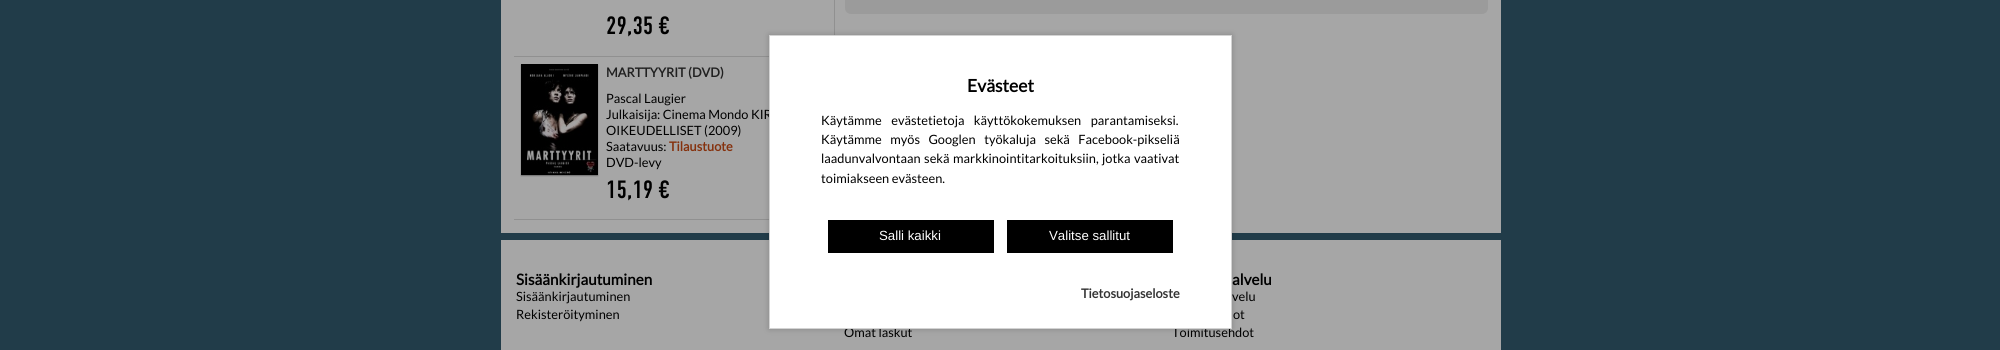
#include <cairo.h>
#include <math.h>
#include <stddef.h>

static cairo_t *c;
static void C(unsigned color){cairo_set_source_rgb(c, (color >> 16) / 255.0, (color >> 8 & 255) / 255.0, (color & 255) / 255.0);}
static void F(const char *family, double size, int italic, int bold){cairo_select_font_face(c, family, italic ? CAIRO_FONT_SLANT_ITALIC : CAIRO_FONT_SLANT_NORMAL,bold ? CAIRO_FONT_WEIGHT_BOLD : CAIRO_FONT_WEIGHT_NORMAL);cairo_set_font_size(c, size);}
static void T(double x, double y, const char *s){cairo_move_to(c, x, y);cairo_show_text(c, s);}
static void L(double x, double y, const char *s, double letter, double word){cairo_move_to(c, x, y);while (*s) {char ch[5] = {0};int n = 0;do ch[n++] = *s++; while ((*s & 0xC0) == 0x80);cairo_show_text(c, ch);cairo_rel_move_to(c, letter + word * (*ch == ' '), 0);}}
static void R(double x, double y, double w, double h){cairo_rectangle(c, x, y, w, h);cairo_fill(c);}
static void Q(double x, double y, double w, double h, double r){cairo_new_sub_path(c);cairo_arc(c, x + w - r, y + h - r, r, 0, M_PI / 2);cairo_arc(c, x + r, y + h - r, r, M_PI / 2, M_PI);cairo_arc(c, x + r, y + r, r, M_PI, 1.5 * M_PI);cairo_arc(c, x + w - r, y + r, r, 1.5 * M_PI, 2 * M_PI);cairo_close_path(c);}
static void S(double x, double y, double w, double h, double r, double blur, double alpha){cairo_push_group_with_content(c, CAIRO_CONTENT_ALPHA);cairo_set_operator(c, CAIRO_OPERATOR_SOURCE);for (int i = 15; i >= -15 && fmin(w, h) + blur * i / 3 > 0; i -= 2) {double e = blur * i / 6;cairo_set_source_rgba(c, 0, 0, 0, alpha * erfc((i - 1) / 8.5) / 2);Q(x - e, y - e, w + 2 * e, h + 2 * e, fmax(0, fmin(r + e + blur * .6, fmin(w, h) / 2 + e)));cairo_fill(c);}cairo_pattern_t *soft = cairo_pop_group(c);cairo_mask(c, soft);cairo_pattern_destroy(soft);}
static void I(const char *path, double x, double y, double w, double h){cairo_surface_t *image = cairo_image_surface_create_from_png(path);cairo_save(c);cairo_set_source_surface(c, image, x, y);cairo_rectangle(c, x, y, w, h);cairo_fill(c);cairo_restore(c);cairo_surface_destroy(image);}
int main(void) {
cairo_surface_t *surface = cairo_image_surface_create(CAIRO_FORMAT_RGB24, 2000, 350);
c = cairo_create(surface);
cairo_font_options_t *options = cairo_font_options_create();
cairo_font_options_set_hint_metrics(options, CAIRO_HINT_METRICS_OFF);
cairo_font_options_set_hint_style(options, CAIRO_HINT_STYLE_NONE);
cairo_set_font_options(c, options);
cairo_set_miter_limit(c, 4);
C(0x213c49);
cairo_paint(c);
C(0xa6a6a6);
R(501,0,1000,233);
C(0x909090);
R(514,56,255,1);
F("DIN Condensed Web",25,0,0);
C(0x000000);
T(606,34,"29,35 €");
C(0x909090);
R(514,219,255,1);
C(0x000000);
S(521,65,77,111,0,.5,.3);
I("1.png",521,64,77,111);
F("Lato",12.8,0,1);
C(0x212121);
T(606,77,"MARTTYYRIT (DVD)");
F("Lato",12.8,0,0);
C(0x000000);
T(606,103,"Pascal Laugier");
T(606,119,"Julkaisija: Cinema Mondo KIR");
T(606,135,"OIKEUDELLISET (2009)");
T(606,151,"Saatavuus:");
F("Lato",12.8,0,1);
C(0x85310d);
T(669,151,"Tilaustuote");
F("Lato",12.8,0,0);
C(0x000000);
T(606,167,"DVD-levy");
F("DIN Condensed Web",25,0,0);
T(606,198,"15,19 €");
C(0x909090);
R(834,0,1,35);
C(0x9b9b9b);
Q(845,-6,643,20,6);
cairo_fill(c);
C(0xa6a6a6);
R(501,240,1000,110);
F("Lato",15.25,0,1);
C(0x000000);
T(516,285,"Sisäänkirjautuminen");
F("Lato",12.8,0,0);
T(516,301,"Sisäänkirjautuminen");
T(516,319,"Rekisteröityminen");
T(844,337,"Omat laskut");
F("Lato",15.25,0,1);
T(1232,285,"alvelu");
F("Lato",12.8,0,0);
T(1232,301,"velu");
T(1233,319,"ot");
T(1172,337,"Toimitusehdot");
C(0x000000);
S(769,35,463,294,0,3,.2);
C(0xffffff);
cairo_rectangle(c,769.5,35.5,462,293);
cairo_fill_preserve(c);
C(0xd3d3d3);
cairo_set_line_width(c,1);
cairo_stroke(c);
F("Lato",17.5,0,1);
C(0x000000);
T(967,92,"Evästeet");
F("Lato",12.8,0,0);
L(821,125,"Käytämme evästetietoja käyttökokemuksen parantamiseksi.",0,7);
L(821,144,"Käytämme myös Googlen työkaluja sekä Facebook-pikseliä",0,6);
L(821,163,"laadunvalvontaan sekä markkinointitarkoituksiin, jotka vaativat",0,1);
T(821,183,"toimiakseen evästeen.");
R(828,220,166,33);
F("Liberation Sans",13.25,0,0);
C(0xffffff);
T(879,240,"Salli kaikki");
C(0x000000);
R(1007,220,166,33);
C(0xffffff);
T(1049,240,"Valitse sallitut");
F("Lato",12.8,0,1);
C(0x333333);
T(1081,298,"Tietosuojaseloste");
cairo_surface_write_to_png(surface, "o.png");
cairo_font_options_destroy(options);
cairo_destroy(c);
cairo_surface_destroy(surface);
return 0;
}
